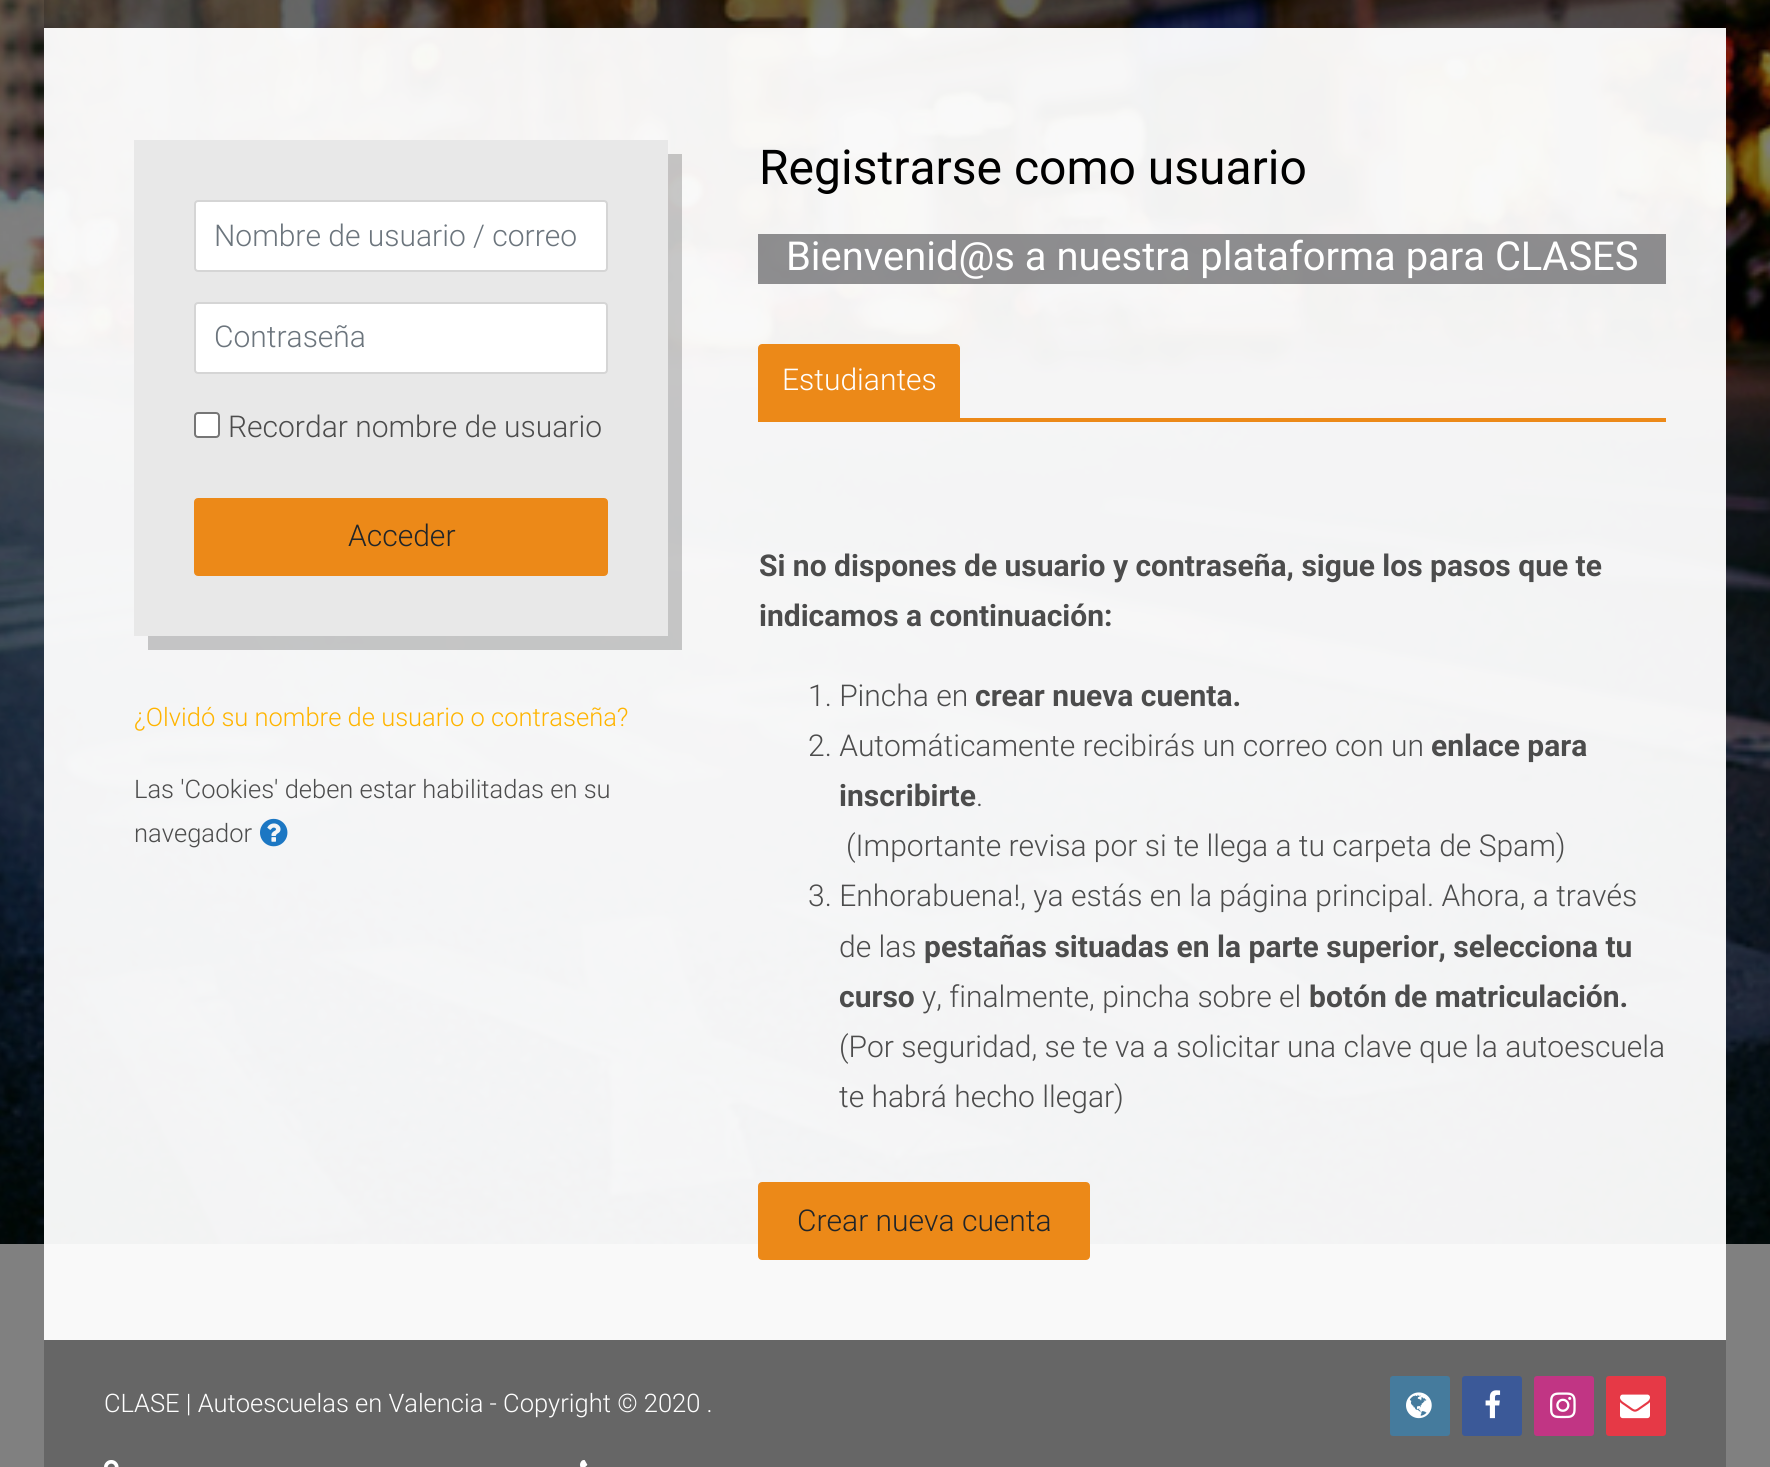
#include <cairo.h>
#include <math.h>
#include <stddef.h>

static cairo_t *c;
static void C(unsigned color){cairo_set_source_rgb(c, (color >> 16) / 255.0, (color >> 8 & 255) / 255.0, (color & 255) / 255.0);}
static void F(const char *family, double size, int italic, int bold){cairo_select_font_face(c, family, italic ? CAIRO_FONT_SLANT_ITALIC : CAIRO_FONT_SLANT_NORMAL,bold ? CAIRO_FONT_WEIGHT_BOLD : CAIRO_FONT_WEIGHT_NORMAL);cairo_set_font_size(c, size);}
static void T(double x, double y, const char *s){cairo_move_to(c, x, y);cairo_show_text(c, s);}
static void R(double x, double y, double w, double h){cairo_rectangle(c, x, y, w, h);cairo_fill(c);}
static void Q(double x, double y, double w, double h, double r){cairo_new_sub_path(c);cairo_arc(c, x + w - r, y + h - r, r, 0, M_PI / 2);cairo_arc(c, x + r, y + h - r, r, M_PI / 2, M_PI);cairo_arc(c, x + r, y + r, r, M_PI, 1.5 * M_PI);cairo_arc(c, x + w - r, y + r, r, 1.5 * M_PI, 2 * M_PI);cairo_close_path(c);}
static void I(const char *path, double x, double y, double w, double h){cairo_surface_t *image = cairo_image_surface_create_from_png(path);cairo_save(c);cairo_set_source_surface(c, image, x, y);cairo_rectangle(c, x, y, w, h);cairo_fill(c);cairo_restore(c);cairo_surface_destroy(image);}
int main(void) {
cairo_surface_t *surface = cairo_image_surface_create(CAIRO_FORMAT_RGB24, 1770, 1467);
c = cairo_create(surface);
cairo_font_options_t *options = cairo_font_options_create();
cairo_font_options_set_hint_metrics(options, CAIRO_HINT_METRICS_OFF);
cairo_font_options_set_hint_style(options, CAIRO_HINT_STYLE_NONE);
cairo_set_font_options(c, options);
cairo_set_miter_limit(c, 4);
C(0x808080);
cairo_paint(c);
C(0xf9f9f9);
R(44,1244,1682,96);
I("1.png",0,0,1770,1244);
cairo_set_source_rgba(c,0,0,0,0.2);
R(44,0,1682,28);
cairo_new_path(c);
cairo_move_to(c,148,636);
cairo_line_to(c,148,650);
cairo_line_to(c,682,650);
cairo_line_to(c,682,154);
cairo_line_to(c,668,154);
cairo_line_to(c,668,636);
cairo_close_path(c);
cairo_fill(c);
C(0xe8e8e8);
R(134,140,534,496);
C(0xffffff);
Q(195,201,412,70,3);
cairo_fill_preserve(c);
C(0xd5d5d5);
cairo_stroke(c);
F("Roboto Light",30,0,0);
C(0x6c757d);
T(214,246,"Nombre de usuario / correo");
C(0xffffff);
Q(195,303,412,70,3);
cairo_fill_preserve(c);
C(0xd5d5d5);
cairo_stroke(c);
C(0x6c757d);
T(214,347,"Contraseña");
C(0xffffff);
Q(195,413,24,24,3);
cairo_fill_preserve(c);
C(0x767676);
cairo_stroke(c);
C(0x4c4c4c);
T(228,437,"Recordar nombre de usuario");
C(0xec8918);
Q(195,499,412,76,3);
cairo_fill_preserve(c);
cairo_stroke(c);
C(0x212529);
T(348,546,"Acceder");
F("Roboto Light",25.5,0,0);
C(0xffb400);
T(134,726,"¿Olvidó su nombre de usuario o contraseña?");
C(0x4c4c4c);
T(134,798,"Las 'Cookies' deben estar habilitadas en su");
T(134,842,"navegador");
I("2.png",260,818,28,29);
F("Roboto",48,0,0);
C(0x000000);
T(759,184,"Registrarse como usuario");
cairo_set_source_rgba(c,0.282,0.286,0.298,0.6);
R(758,234,908,50);
F("Roboto",39.9,0,0);
C(0xffffff);
T(786,270,"Bienvenid@s a nuestra plataforma para CLASES");
C(0xec8918);
R(758,418,908,4);
cairo_new_path(c);
cairo_move_to(c,762,345);
cairo_line_to(c,956,345);
cairo_curve_to(c,957.5,345,959,346.5,959,348);
cairo_line_to(c,959,417);
cairo_line_to(c,759,417);
cairo_line_to(c,759,348);
cairo_curve_to(c,759,346.5,760.5,345,762,345);
cairo_close_path(c);
cairo_fill_preserve(c);
cairo_stroke(c);
F("Roboto Light",30,0,0);
C(0xffffff);
T(782,390,"Estudiantes");
F("Roboto",30,0,1);
C(0x4c4c4c);
T(759,576,"Si no dispones de usuario y contraseña, sigue los pasos que te");
T(759,626,"indicamos a continuación:");
F("Roboto Light",30,0,0);
T(808,706,"1. Pincha en");
F("Roboto",30,0,1);
T(975,706,"crear nueva cuenta.");
F("Roboto Light",30,0,0);
T(808,756,"2. Automáticamente recibirás un correo con un");
F("Roboto",30,0,1);
T(1431,756,"enlace para");
T(839,806,"inscribirte");
F("Roboto Light",30,0,0);
T(976,806,".");
T(846,856,"(Importante revisa por si te llega a tu carpeta de Spam)");
T(808,906,"3. Enhorabuena!, ya estás en la página principal. Ahora, a través");
T(839,957,"de las");
F("Roboto",30,0,1);
T(924,957,"pestañas situadas en la parte superior, selecciona tu");
T(839,1007,"curso");
F("Roboto Light",30,0,0);
T(922,1007,"y, finalmente, pincha sobre el");
F("Roboto",30,0,1);
T(1309,1007,"botón de matriculación.");
F("Roboto Light",30,0,0);
T(839,1057,"(Por seguridad, se te va a solicitar una clave que la autoescuela");
T(839,1107,"te habrá hecho llegar)");
C(0xec8918);
Q(759,1183,330,76,3);
cairo_fill_preserve(c);
cairo_stroke(c);
C(0x212529);
T(797,1231,"Crear nueva cuenta");
C(0x666666);
R(44,1340,1682,127);
F("Roboto Light",25.5,0,0);
C(0xffffff);
T(104,1412,"CLASE | Autoescuelas en Valencia - Copyright © 2020 .");
I("3.png",104,1460,15,7);
I("4.png",580,1460,8,7);
C(0x457b9d);
Q(1390,1376,60,60,3);
cairo_fill(c);
I("5.png",1406,1392,26,27);
C(0x3b5998);
Q(1462,1376,60,60,3);
cairo_fill(c);
I("6.png",1485,1390,16,29);
C(0xc13584);
Q(1534,1376,60,60,3);
cairo_fill(c);
I("7.png",1550,1392,26,27);
C(0xe63946);
Q(1606,1376,60,60,3);
cairo_fill(c);
I("8.png",1620,1394,30,25);
cairo_surface_write_to_png(surface, "o.png");
cairo_font_options_destroy(options);
cairo_destroy(c);
cairo_surface_destroy(surface);
return 0;
}
